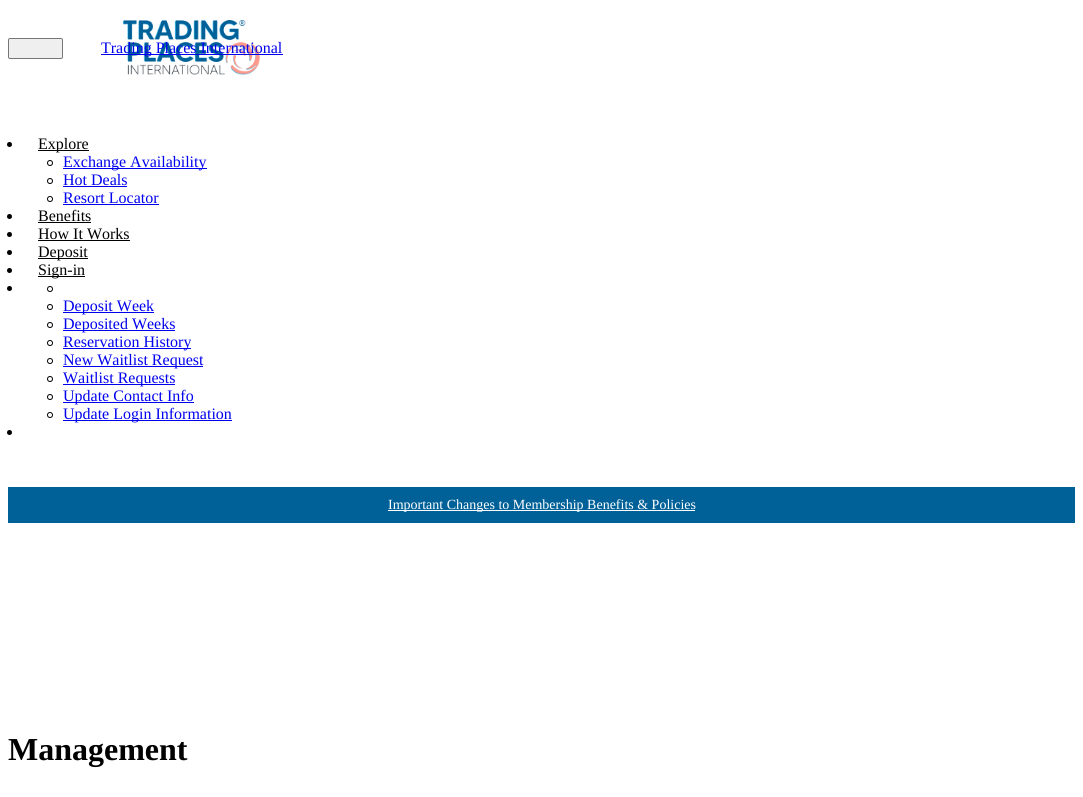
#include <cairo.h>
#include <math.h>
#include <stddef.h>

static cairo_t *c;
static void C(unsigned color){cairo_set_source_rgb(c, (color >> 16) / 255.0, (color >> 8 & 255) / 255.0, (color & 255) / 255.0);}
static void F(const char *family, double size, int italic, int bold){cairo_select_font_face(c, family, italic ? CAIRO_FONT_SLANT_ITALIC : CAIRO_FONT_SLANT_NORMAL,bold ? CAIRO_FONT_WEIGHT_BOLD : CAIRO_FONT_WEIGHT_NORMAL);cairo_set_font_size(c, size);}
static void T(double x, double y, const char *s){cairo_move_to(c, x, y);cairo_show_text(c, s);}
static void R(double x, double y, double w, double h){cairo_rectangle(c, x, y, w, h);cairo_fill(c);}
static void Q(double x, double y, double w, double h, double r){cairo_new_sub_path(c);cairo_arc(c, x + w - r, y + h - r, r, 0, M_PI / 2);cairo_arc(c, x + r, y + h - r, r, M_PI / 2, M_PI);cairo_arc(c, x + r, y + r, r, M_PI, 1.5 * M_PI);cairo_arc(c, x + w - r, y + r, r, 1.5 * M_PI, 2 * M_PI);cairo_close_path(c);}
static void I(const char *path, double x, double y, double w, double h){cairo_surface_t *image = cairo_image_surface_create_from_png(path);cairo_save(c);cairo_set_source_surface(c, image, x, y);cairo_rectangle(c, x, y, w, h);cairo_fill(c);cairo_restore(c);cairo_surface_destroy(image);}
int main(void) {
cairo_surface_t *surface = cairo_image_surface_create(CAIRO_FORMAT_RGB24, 1083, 797);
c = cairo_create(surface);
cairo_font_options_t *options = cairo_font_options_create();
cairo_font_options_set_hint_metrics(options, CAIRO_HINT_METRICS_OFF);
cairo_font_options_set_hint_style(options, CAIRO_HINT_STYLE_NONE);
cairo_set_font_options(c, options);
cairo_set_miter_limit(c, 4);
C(0xffffff);
cairo_paint(c);
C(0xefefef);
Q(8.5,38.5,54,20,1.5);
cairo_fill_preserve(c);
C(0x767676);
cairo_set_line_width(c,1);
cairo_stroke(c);
I("1.png",123,20,137,55);
C(0x0000ee);
R(101,54,182,1);
F("Liberation Serif",16,0,0);
T(101,53,"Trading Places International");
C(0x000000);
cairo_new_path(c);
cairo_arc(c,9.5,144.5,2.5,0,2 * M_PI);
cairo_fill(c);
R(38,150,51,1);
T(38,149,"Explore");
cairo_new_path(c);
cairo_arc(c,50,163,2.5,0,2 * M_PI);
cairo_stroke(c);
C(0x0000ee);
R(63,168,144,1);
T(63,167,"Exchange Availability");
cairo_new_path(c);
cairo_arc(c,50,181,2.5,0,2 * M_PI);
C(0x000000);
cairo_stroke(c);
C(0x0000ee);
T(63,185,"Hot Deals");
R(63,186,64,1);
cairo_new_path(c);
cairo_arc(c,50,199,2.5,0,2 * M_PI);
C(0x000000);
cairo_stroke(c);
C(0x0000ee);
T(63,203,"Resort Locator");
R(63,204,96,1);
C(0x000000);
cairo_new_path(c);
cairo_arc(c,9.5,216.5,2.5,0,2 * M_PI);
cairo_fill(c);
T(38,221,"Benefits");
R(38,222,53,1);
cairo_new_path(c);
cairo_arc(c,9.5,234.5,2.5,0,2 * M_PI);
cairo_fill(c);
T(38,239,"How It Works");
R(38,240,92,1);
cairo_new_path(c);
cairo_arc(c,9.5,252.5,2.5,0,2 * M_PI);
cairo_fill(c);
R(38,258,50,1);
T(38,257,"Deposit");
cairo_new_path(c);
cairo_arc(c,9.5,270.5,2.5,0,2 * M_PI);
cairo_fill(c);
R(38,276,47,1);
T(38,275,"Sign-in");
cairo_new_path(c);
cairo_arc(c,9.5,288.5,2.5,0,2 * M_PI);
cairo_fill(c);
cairo_arc(c,50,289,2.5,0,2 * M_PI);
cairo_stroke(c);
cairo_arc(c,50,307,2.5,0,2 * M_PI);
cairo_stroke(c);
C(0x0000ee);
R(63,312,91,1);
T(63,311,"Deposit Week");
cairo_new_path(c);
cairo_arc(c,50,325,2.5,0,2 * M_PI);
C(0x000000);
cairo_stroke(c);
C(0x0000ee);
R(63,330,112,1);
T(63,329,"Deposited Weeks");
cairo_new_path(c);
cairo_arc(c,50,343,2.5,0,2 * M_PI);
C(0x000000);
cairo_stroke(c);
C(0x0000ee);
R(63,348,128,1);
T(63,347,"Reservation History");
cairo_new_path(c);
cairo_arc(c,50,361,2.5,0,2 * M_PI);
C(0x000000);
cairo_stroke(c);
C(0x0000ee);
R(63,366,140,1);
T(63,365,"New Waitlist Request");
cairo_new_path(c);
cairo_arc(c,50,379,2.5,0,2 * M_PI);
C(0x000000);
cairo_stroke(c);
C(0x0000ee);
R(63,384,112,1);
T(63,383,"Waitlist Requests");
cairo_new_path(c);
cairo_arc(c,50,397,2.5,0,2 * M_PI);
C(0x000000);
cairo_stroke(c);
C(0x0000ee);
R(63,402,131,1);
T(63,401,"Update Contact Info");
cairo_new_path(c);
cairo_arc(c,50,415,2.5,0,2 * M_PI);
C(0x000000);
cairo_stroke(c);
C(0x0000ee);
R(63,420,169,1);
T(63,419,"Update Login Information");
C(0x000000);
cairo_new_path(c);
cairo_arc(c,9.5,432.5,2.5,0,2 * M_PI);
cairo_fill(c);
C(0x006098);
R(8,487,1067,36);
C(0xffffff);
R(388,510,307,1);
F("Liberation Serif",14,0,0);
T(388,509,"Important Changes to Membership Benefits & Policies");
F("Liberation Serif",32,0,1);
C(0x000000);
T(8,760,"Management");
cairo_surface_write_to_png(surface, "o.png");
cairo_font_options_destroy(options);
cairo_destroy(c);
cairo_surface_destroy(surface);
return 0;
}
